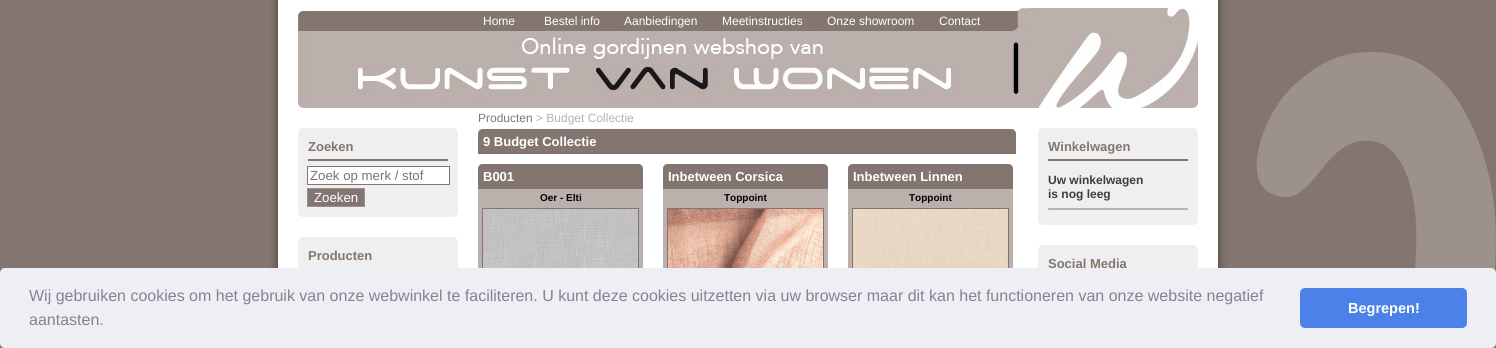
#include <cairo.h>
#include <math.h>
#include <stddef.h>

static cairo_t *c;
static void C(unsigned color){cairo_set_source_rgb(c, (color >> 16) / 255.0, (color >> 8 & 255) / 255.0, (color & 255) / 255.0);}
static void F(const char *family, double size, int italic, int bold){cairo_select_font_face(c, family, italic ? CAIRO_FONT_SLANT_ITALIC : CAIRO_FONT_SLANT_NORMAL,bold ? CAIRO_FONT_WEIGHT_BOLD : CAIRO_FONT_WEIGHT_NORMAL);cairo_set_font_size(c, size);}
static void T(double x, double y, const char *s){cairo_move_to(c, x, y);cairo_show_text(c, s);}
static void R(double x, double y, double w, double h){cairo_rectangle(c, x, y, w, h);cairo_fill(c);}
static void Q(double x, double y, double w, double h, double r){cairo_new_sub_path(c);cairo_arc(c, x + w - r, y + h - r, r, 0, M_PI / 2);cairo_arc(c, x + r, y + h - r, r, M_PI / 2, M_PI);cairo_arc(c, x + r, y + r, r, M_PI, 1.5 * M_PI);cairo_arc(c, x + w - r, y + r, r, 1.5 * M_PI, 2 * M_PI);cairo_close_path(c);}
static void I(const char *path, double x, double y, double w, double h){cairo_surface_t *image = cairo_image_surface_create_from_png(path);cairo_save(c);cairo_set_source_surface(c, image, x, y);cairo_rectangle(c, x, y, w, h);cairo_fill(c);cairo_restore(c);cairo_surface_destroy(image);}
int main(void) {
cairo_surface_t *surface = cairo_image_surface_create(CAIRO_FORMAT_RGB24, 1496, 348);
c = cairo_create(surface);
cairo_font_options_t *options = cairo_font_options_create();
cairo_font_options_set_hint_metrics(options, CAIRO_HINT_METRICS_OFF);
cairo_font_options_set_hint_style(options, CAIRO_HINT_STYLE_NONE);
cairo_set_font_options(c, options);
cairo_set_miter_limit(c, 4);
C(0x837670);
cairo_paint(c);
I("1.png",270,0,1226,348);
I("2.png",298,8,900,100);
F("Liberation Sans",12,0,0);
C(0xffffff);
T(483,25,"Home");
T(544,25,"Bestel info");
T(624,25,"Aanbiedingen");
T(722,25,"Meetinstructies");
T(827,25,"Onze showroom");
T(939,25,"Contact");
C(0xefefef);
Q(298,128,160,89,5);
cairo_fill(c);
C(0x837670);
R(308,159,140,2);
F("Liberation Sans",13,0,1);
T(308,151,"Zoeken");
C(0xffffff);
cairo_rectangle(c,307.5,166.5,142,18);
cairo_fill_preserve(c);
C(0x837670);
cairo_set_line_width(c,1);
cairo_stroke(c);
F("Liberation Sans",13.25,0,0);
C(0x757575);
T(310,180,"Zoek op merk / stof");
C(0x837670);
cairo_rectangle(c,307.5,188.5,57,18);
cairo_fill_preserve(c);
C(0x959595);
cairo_stroke(c);
C(0xffffff);
T(314,202,"Zoeken");
C(0xefefef);
Q(298,237,160,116,5);
cairo_fill(c);
F("Liberation Sans",13,0,1);
C(0x837670);
T(308,260,"Producten");
F("Liberation Sans",12,0,0);
T(478,122,"Producten");
C(0xbbb0ab);
T(536,122,"> Budget Collectie");
C(0x837670);
cairo_new_path(c);
cairo_move_to(c,483,129);
cairo_line_to(c,1011,129);
cairo_curve_to(c,1014,129,1016,131,1016,134);
cairo_line_to(c,1016,154);
cairo_line_to(c,478,154);
cairo_line_to(c,478,134);
cairo_curve_to(c,478,131,480,129,483,129);
cairo_close_path(c);
cairo_fill(c);
F("Liberation Sans",13,0,1);
C(0xffffff);
T(483,146,"9 Budget Collectie");
C(0xbbb0ab);
Q(478,164,165,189,5);
cairo_fill(c);
C(0x837670);
cairo_new_path(c);
cairo_move_to(c,483,164);
cairo_line_to(c,638,164);
cairo_curve_to(c,641,164,643,166,643,169);
cairo_line_to(c,643,189);
cairo_line_to(c,478,189);
cairo_line_to(c,478,169);
cairo_curve_to(c,478,166,480,164,483,164);
cairo_close_path(c);
cairo_fill(c);
C(0xffffff);
T(483,181,"B001");
F("Liberation Sans",10,0,1);
C(0x000000);
T(540,201,"Oer - Elti");
cairo_rectangle(c,482.5,208.5,156,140);
C(0x837670);
cairo_stroke(c);
I("3.png",483,209,155,59);
C(0xbbb0ab);
Q(663,164,165,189,5);
cairo_fill(c);
C(0x837670);
cairo_new_path(c);
cairo_move_to(c,668,164);
cairo_line_to(c,823,164);
cairo_curve_to(c,826,164,828,166,828,169);
cairo_line_to(c,828,189);
cairo_line_to(c,663,189);
cairo_line_to(c,663,169);
cairo_curve_to(c,663,166,665,164,668,164);
cairo_close_path(c);
cairo_fill(c);
F("Liberation Sans",13,0,1);
C(0xffffff);
T(668,181,"Inbetween Corsica");
F("Liberation Sans",10,0,1);
C(0x000000);
T(724,201,"Toppoint");
cairo_rectangle(c,667.5,208.5,156,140);
C(0x837670);
cairo_stroke(c);
I("4.png",668,209,155,59);
C(0xbbb0ab);
Q(848,164,165,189,5);
cairo_fill(c);
C(0x837670);
cairo_new_path(c);
cairo_move_to(c,853,164);
cairo_line_to(c,1008,164);
cairo_curve_to(c,1011,164,1013,166,1013,169);
cairo_line_to(c,1013,189);
cairo_line_to(c,848,189);
cairo_line_to(c,848,169);
cairo_curve_to(c,848,166,850,164,853,164);
cairo_close_path(c);
cairo_fill(c);
F("Liberation Sans",13,0,1);
C(0xffffff);
T(853,181,"Inbetween Linnen");
F("Liberation Sans",10,0,1);
C(0x000000);
T(909,201,"Toppoint");
cairo_rectangle(c,852.5,208.5,156,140);
C(0x837670);
cairo_stroke(c);
I("5.png",853,209,155,59);
C(0xefefef);
Q(1038,128,160,97,5);
cairo_fill(c);
C(0x837670);
R(1048,159,140,2);
F("Liberation Sans",13,0,1);
T(1048,151,"Winkelwagen");
F("Liberation Sans",12,0,1);
C(0x3e3e3e);
T(1048,184,"Uw winkelwagen");
T(1048,198,"is nog leeg");
C(0xbbb0ab);
Q(1048,208,140,2,1);
cairo_fill(c);
C(0xefefef);
Q(1038,245,160,75,5);
cairo_fill(c);
F("Liberation Sans",13,0,1);
C(0x837670);
T(1048,268,"Social Media");
C(0xedeff5);
Q(0,268,1496,80,5);
cairo_fill(c);
F("Liberation Sans",16,0,0);
C(0x838391);
T(29,301,"Wij gebruiken cookies om het gebruik van onze webwinkel te faciliteren. U kunt deze cookies uitzetten via uw browser maar dit kan het functioneren van onze website negatief");
T(29,325,"aantasten.");
C(0x4b81e8);
Q(1300,288,167,40,5);
cairo_fill(c);
F("Liberation Sans",14.5,0,1);
C(0xffffff);
T(1348,313,"Begrepen!");
cairo_surface_write_to_png(surface, "o.png");
cairo_font_options_destroy(options);
cairo_destroy(c);
cairo_surface_destroy(surface);
return 0;
}
